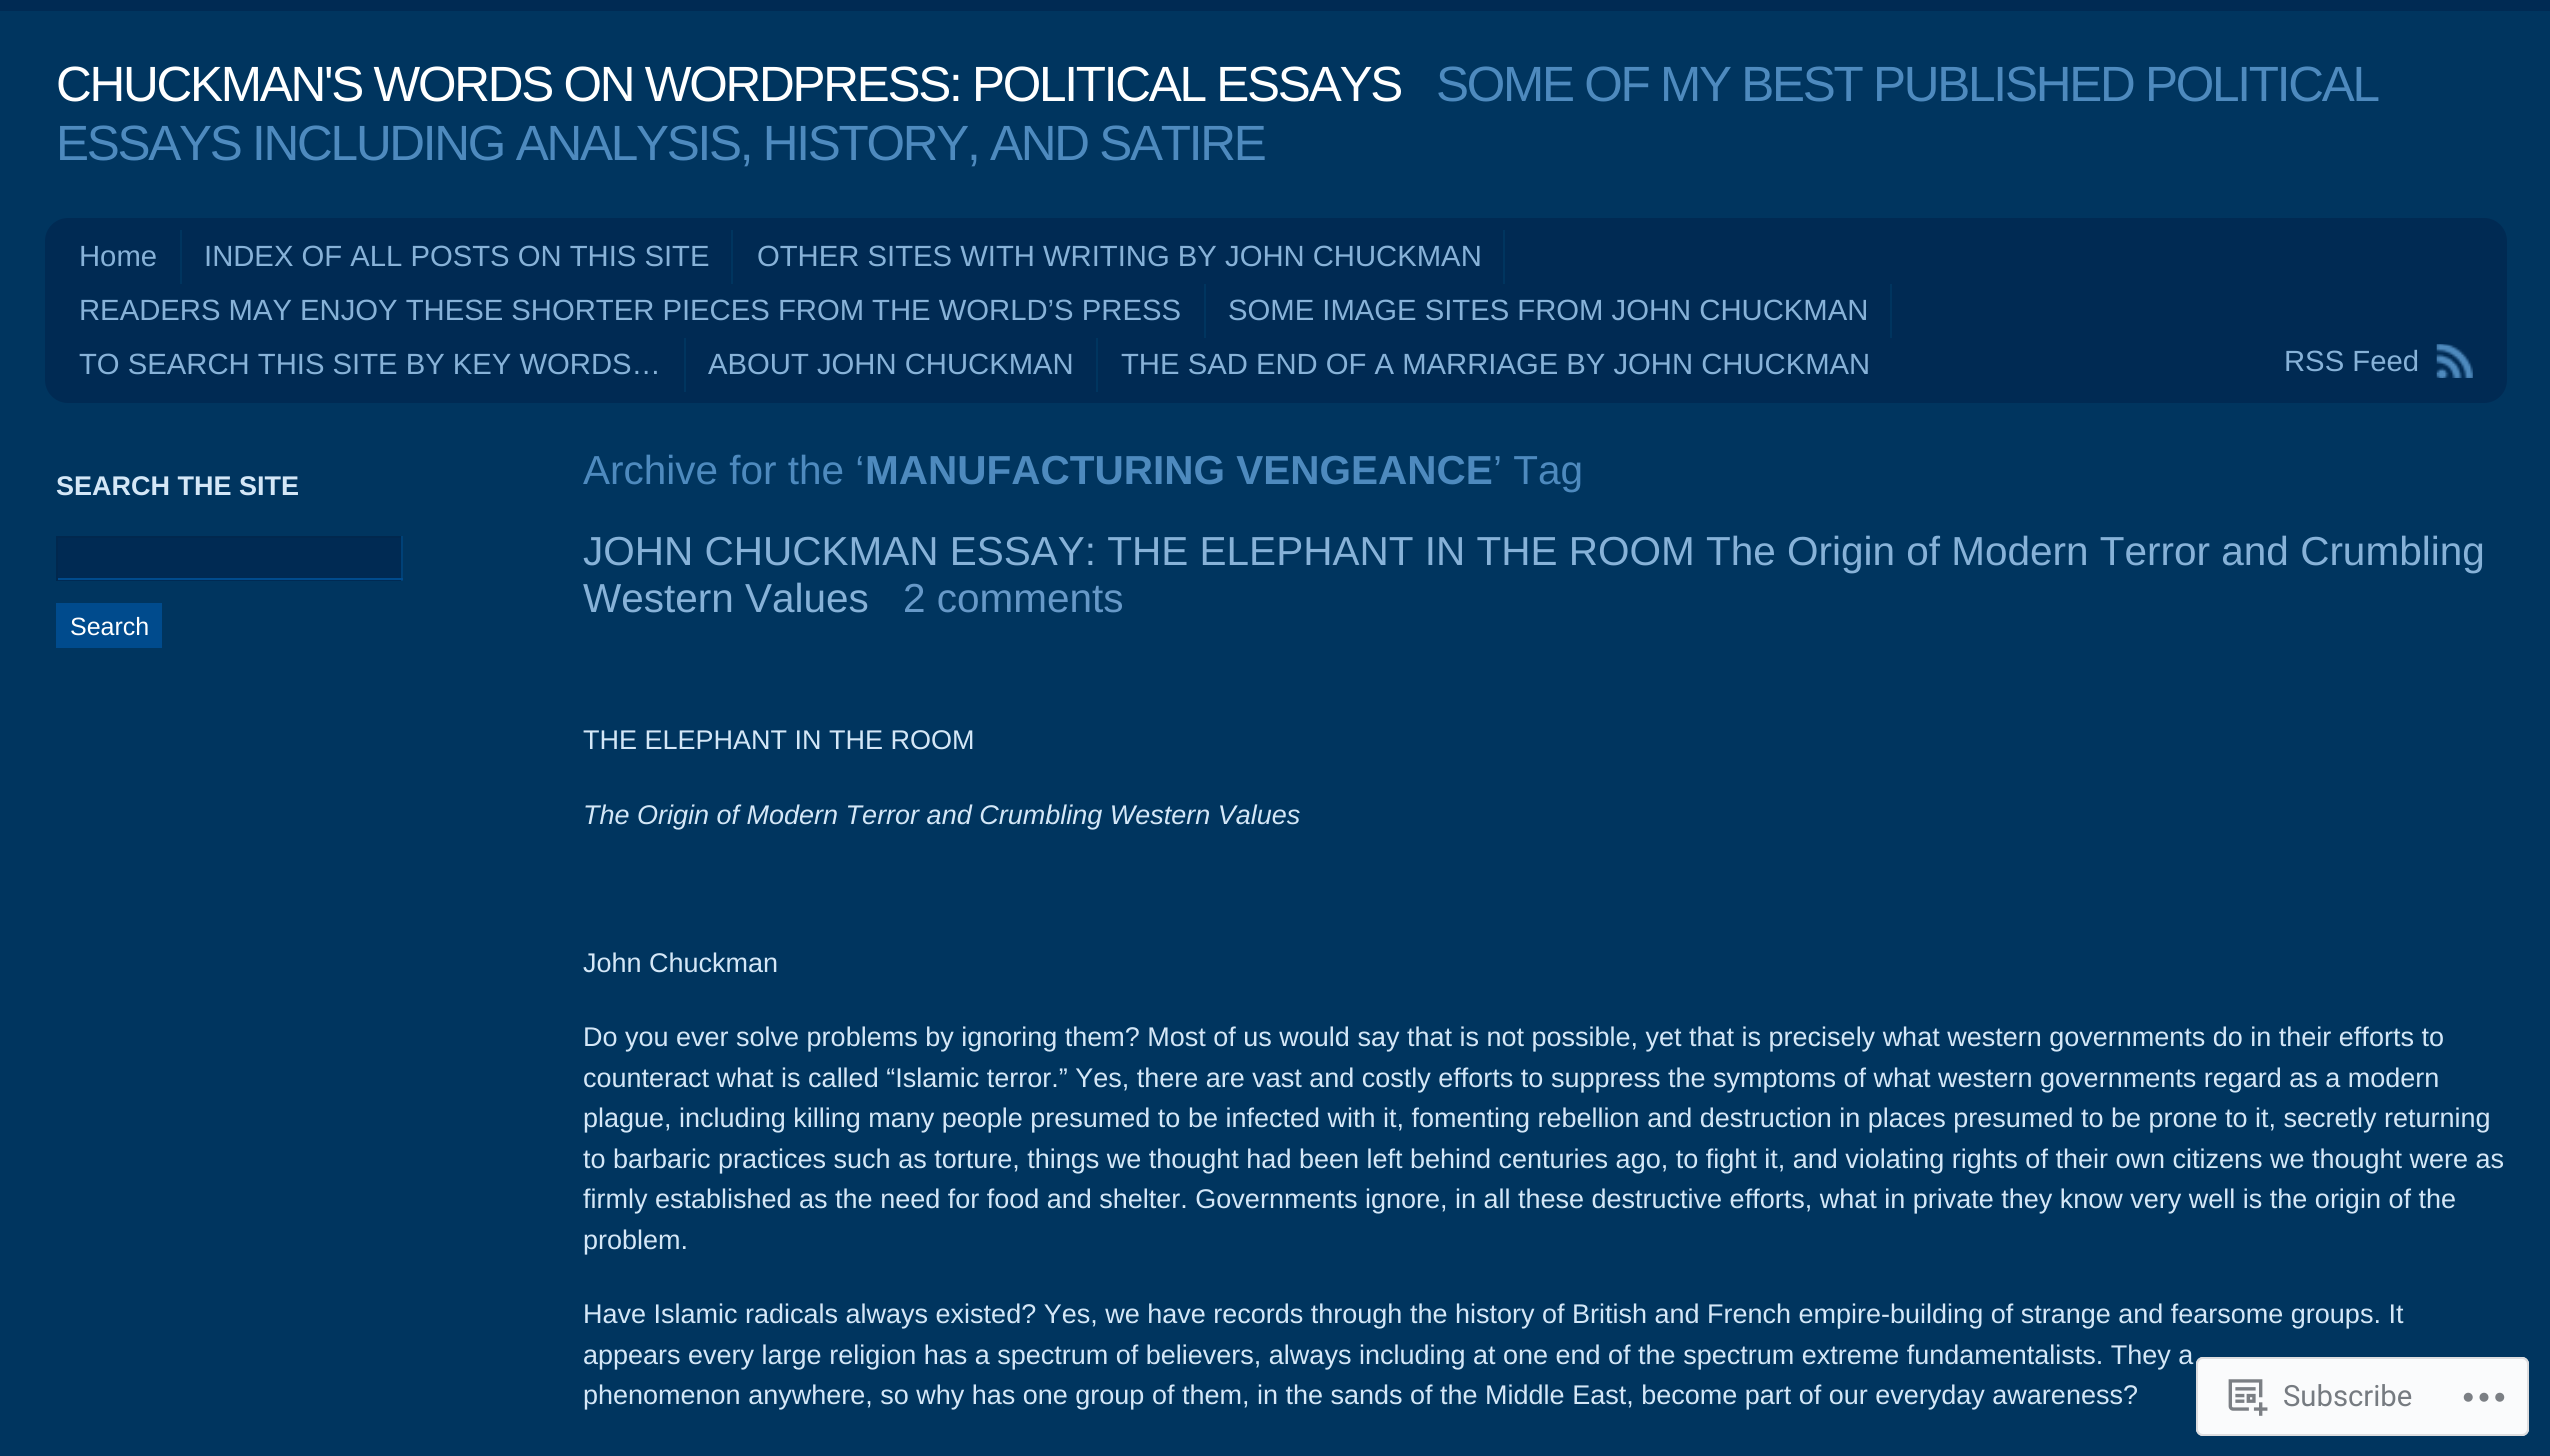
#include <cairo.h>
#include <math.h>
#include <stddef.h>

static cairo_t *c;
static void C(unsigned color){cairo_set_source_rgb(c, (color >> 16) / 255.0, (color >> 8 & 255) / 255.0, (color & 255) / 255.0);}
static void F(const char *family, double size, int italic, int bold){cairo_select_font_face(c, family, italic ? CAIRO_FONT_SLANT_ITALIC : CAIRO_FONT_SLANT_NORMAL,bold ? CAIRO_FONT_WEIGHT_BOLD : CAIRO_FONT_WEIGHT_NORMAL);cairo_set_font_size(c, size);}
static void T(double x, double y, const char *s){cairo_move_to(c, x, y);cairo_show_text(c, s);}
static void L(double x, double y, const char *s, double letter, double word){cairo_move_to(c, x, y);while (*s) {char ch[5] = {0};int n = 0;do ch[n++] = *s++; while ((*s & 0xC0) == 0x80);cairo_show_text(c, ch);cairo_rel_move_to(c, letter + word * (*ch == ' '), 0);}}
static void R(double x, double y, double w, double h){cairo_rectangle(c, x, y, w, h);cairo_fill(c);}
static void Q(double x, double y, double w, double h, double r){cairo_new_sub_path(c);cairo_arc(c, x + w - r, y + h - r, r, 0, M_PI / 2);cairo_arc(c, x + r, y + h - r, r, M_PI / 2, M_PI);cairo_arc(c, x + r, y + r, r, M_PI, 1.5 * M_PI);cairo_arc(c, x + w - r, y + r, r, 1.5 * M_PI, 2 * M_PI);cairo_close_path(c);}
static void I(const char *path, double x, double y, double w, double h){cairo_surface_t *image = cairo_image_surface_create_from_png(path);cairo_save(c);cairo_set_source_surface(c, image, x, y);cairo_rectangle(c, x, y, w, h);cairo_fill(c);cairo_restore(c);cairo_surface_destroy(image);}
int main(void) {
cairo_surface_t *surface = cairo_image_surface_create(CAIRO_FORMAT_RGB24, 2550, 1456);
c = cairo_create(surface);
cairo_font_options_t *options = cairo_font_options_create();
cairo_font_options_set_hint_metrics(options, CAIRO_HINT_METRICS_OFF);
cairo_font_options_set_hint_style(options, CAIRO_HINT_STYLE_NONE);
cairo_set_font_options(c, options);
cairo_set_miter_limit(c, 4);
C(0x00355f);
cairo_paint(c);
C(0x002a53);
R(0,0,2550,11);
F("Liberation Sans",49.5,0,0);
C(0xffffff);
L(56,101,"CHUCKMAN'S WORDS ON WORDPRESS: POLITICAL ESSAYS",-2.25,0);
C(0x4e8abe);
L(1436,101,"SOME OF MY BEST PUBLISHED POLITICAL",-2.25,0);
L(56,160,"ESSAYS INCLUDING ANALYSIS, HISTORY, AND SATIRE",-2.25,0);
C(0x002a53);
Q(45,218,2462,185,23);
cairo_fill(c);
C(0x00355f);
R(180,230,2,54);
F("Liberation Sans",29.25,0,0);
C(0x87b2d8);
T(79,266,"Home");
C(0x00355f);
R(731,230,2,54);
C(0x87b2d8);
T(204,266,"INDEX OF ALL POSTS ON THIS SITE");
C(0x00355f);
R(1503,230,2,54);
C(0x87b2d8);
T(757,266,"OTHER SITES WITH WRITING BY JOHN CHUCKMAN");
C(0x00355f);
R(1204,284,2,54);
C(0x87b2d8);
T(79,320,"READERS MAY ENJOY THESE SHORTER PIECES FROM THE WORLD’S PRESS");
C(0x00355f);
R(1890,284,2,54);
C(0x87b2d8);
T(1228,320,"SOME IMAGE SITES FROM JOHN CHUCKMAN");
C(0x00355f);
R(684,338,2,54);
C(0x87b2d8);
T(79,374,"TO SEARCH THIS SITE BY KEY WORDS…");
C(0x00355f);
R(1096,338,2,54);
C(0x87b2d8);
T(708,374,"ABOUT JOHN CHUCKMAN");
T(1121,374,"THE SAD END OF A MARRIAGE BY JOHN CHUCKMAN");
T(2284,371,"RSS Feed");
I("1.png",2436,344,37,34);
F("Liberation Sans",27,0,1);
C(0xd4e7f7);
T(56,495,"SEARCH THE SITE");
C(0x002a53);
R(58,538,343,43);
C(0x01284e);
R(56,536,347,2);
C(0x004177);
R(401,536,2,45);
C(0x004b8d);
R(56,578,347,2);
C(0x01284e);
R(56,536,2,45);
C(0x004b8d);
R(56,603,106,45);
F("Liberation Sans",25,0,0);
C(0xffffff);
T(70,635,"Search");
F("Liberation Sans",40.5,0,0);
C(0x4e8abe);
T(583,484,"Archive for the ‘");
F("Liberation Sans",40.5,0,1);
T(865,484,"MANUFACTURING VENGEANCE");
F("Liberation Sans",40.5,0,0);
T(1493,484,"’ Tag");
C(0x87b2d8);
T(583,565,"JOHN CHUCKMAN ESSAY: THE ELEPHANT IN THE ROOM The Origin of Modern Terror and Crumbling");
T(583,612,"Western Values");
C(0x6799c8);
T(903,612,"2 comments");
F("Liberation Sans",27,0,0);
C(0xd4e7f7);
T(583,749,"THE ELEPHANT IN THE ROOM");
F("Liberation Sans",27,1,0);
T(583,824,"The Origin of Modern Terror and Crumbling Western Values");
F("Liberation Sans",27,0,0);
T(583,972,"John Chuckman");
T(583,1046,"Do you ever solve problems by ignoring them? Most of us would say that is not possible, yet that is precisely what western governments do in their efforts to");
T(583,1087,"counteract what is called “Islamic terror.” Yes, there are vast and costly efforts to suppress the symptoms of what western governments regard as a modern");
T(583,1127,"plague, including killing many people presumed to be infected with it, fomenting rebellion and destruction in places presumed to be prone to it, secretly returning");
T(583,1168,"to barbaric practices such as torture, things we thought had been left behind centuries ago, to fight it, and violating rights of their own citizens we thought were as");
T(583,1208,"firmly established as the need for food and shelter. Governments ignore, in all these destructive efforts, what in private they know very well is the origin of the");
T(583,1249,"problem.");
T(583,1323,"Have Islamic radicals always existed? Yes, we have records through the history of British and French empire-building of strange and fearsome groups. It");
T(583,1364,"appears every large religion has a spectrum of believers, always including at one end of the spectrum extreme fundamentalists. They a");
T(583,1404,"phenomenon anywhere, so why has one group of them, in the sands of the Middle East, become part of our everyday awareness?");
cairo_set_source_rgba(c,1,1,1,0.98);
Q(2196,1357,333,79,7);
cairo_fill(c);
Q(2197,1358,331,77,6);
cairo_set_source_rgba(c,0.863,0.863,0.871,0.98);
cairo_stroke(c);
I("2.png",2228,1379,40,37);
F("Roboto",29.25,0,0);
C(0x767b81);
T(2283,1406,"Subscribe");
I("3.png",2463,1392,42,10);
cairo_surface_write_to_png(surface, "o.png");
cairo_font_options_destroy(options);
cairo_destroy(c);
cairo_surface_destroy(surface);
return 0;
}
